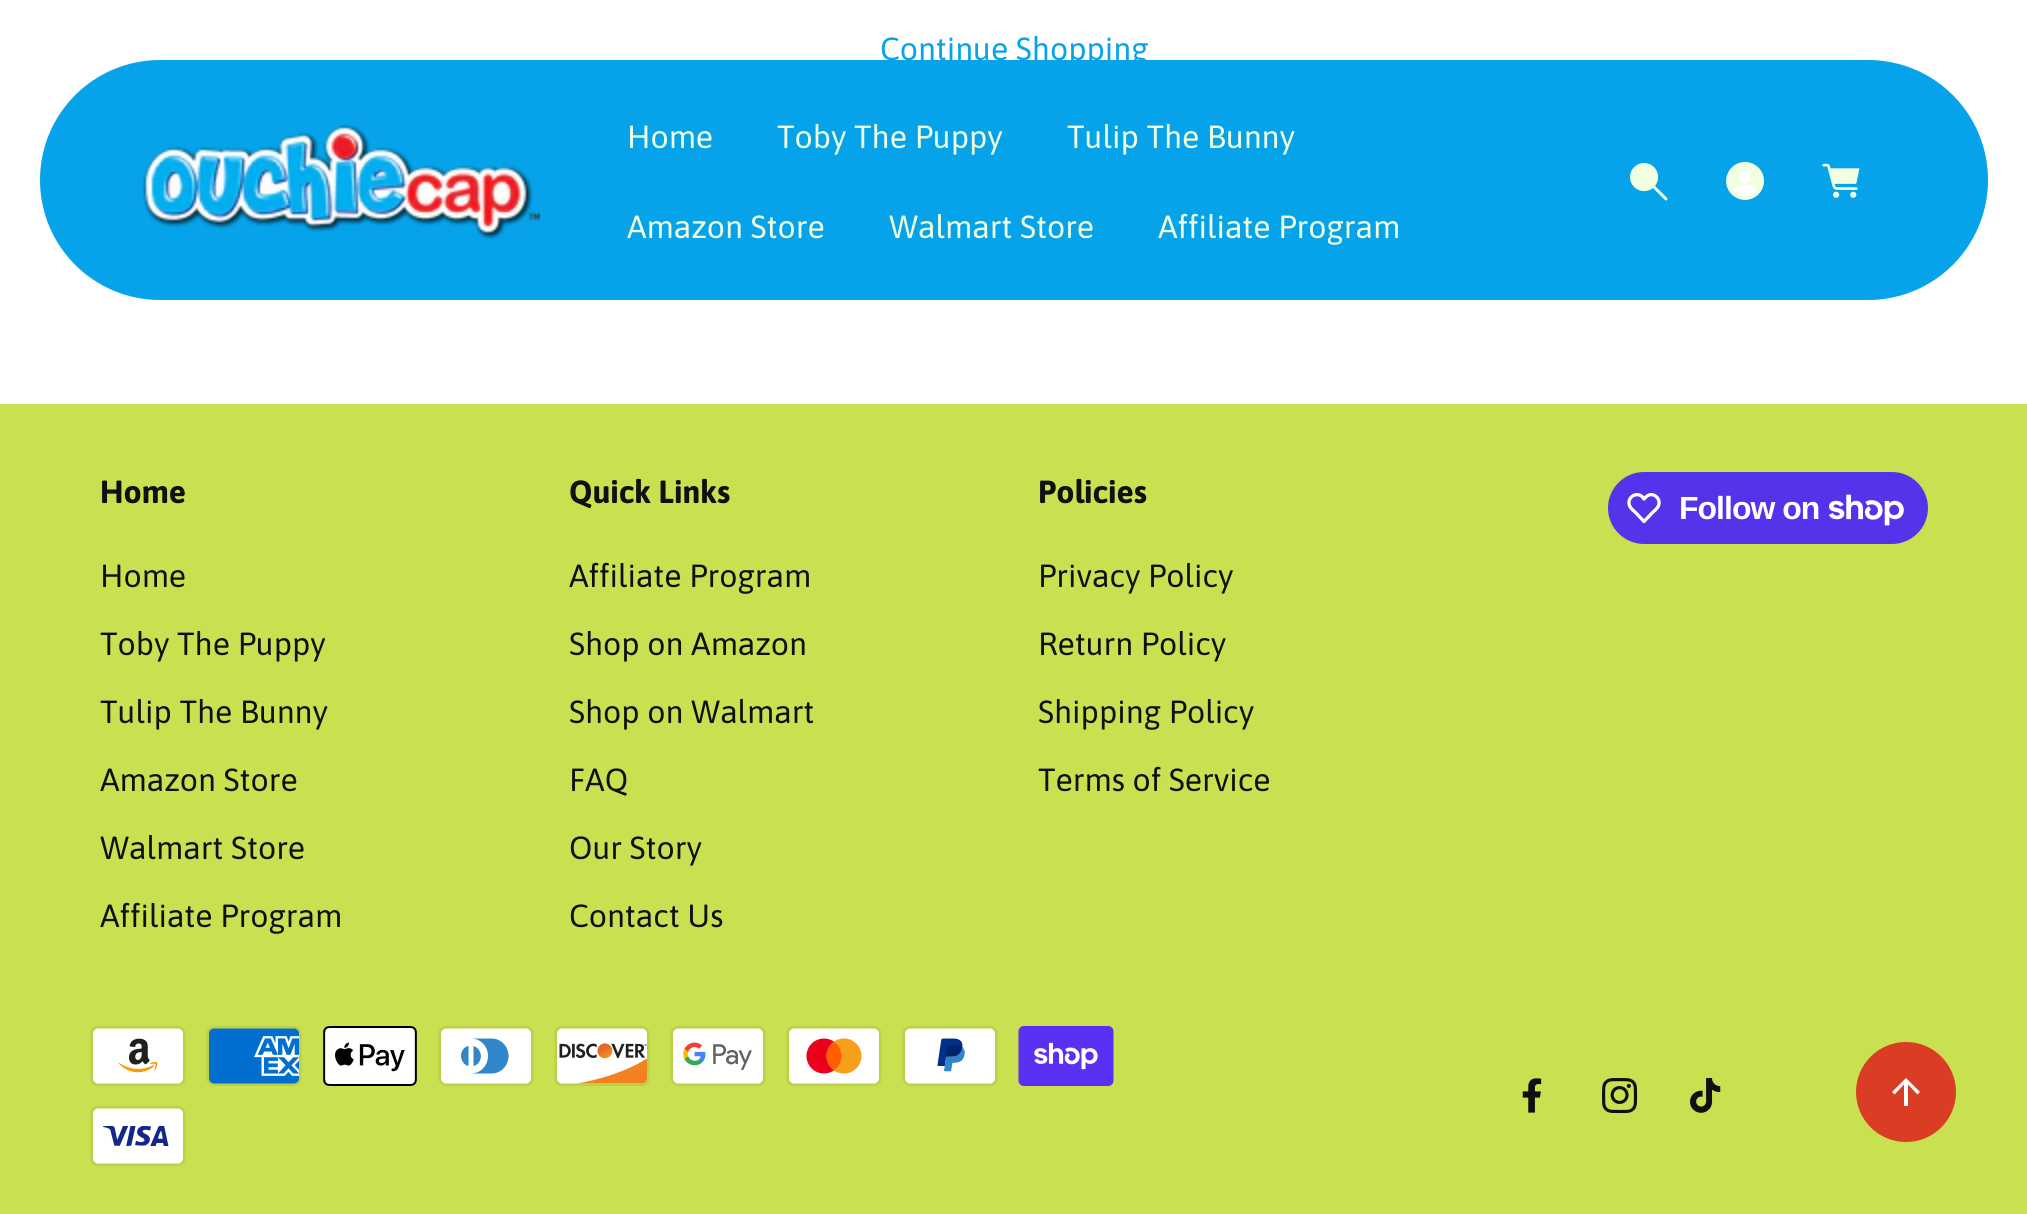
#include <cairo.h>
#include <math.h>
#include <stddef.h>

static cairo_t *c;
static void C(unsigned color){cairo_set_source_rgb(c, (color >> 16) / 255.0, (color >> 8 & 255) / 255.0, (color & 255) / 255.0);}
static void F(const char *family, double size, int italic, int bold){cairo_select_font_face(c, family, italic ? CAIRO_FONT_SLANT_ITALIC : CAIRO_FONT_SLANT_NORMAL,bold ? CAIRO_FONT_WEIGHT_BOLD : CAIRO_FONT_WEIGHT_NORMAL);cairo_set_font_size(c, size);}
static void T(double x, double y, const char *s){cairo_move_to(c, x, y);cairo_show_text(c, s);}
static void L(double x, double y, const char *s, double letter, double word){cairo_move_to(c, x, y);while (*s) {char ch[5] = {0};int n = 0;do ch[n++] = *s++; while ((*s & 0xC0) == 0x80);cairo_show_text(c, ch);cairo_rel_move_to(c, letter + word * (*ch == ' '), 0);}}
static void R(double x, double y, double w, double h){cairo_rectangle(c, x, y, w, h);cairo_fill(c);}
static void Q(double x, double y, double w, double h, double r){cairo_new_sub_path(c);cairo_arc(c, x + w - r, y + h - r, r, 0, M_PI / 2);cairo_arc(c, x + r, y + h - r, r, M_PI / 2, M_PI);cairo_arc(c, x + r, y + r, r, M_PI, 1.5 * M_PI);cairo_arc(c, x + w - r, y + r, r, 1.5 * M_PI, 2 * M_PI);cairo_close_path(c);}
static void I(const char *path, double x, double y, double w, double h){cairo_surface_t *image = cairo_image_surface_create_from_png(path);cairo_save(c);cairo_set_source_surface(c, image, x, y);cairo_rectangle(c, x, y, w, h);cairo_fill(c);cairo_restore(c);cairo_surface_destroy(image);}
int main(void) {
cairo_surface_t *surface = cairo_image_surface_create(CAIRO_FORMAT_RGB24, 2027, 1214);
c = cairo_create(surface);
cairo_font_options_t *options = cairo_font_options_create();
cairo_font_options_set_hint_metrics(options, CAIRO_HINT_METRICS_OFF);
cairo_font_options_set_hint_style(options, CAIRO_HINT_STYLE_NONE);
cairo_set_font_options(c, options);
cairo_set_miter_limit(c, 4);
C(0xffffff);
cairo_paint(c);
F("Asap",32,0,0);
C(0x06a3ea);
T(880,60,"Continue Shopping");
Q(40,60,1948,240,120);
cairo_fill(c);
I("1.png",142,124,398,116);
C(0xf0ffdf);
T(627,148,"Home");
T(777,148,"Toby The Puppy");
T(1067,148,"Tulip The Bunny");
T(627,238,"Amazon Store");
T(889,238,"Walmart Store");
T(1158,238,"Affiliate Program");
I("2.png",1630,163,38,38);
I("3.png",1726,162,38,38);
I("4.png",1822,163,38,35);
C(0xc9e150);
R(0,404,2027,810);
F("Asap",32,0,1);
C(0x101010);
T(100,503,"Home");
F("Asap",32,0,0);
T(100,587,"Home");
T(100,655,"Toby The Puppy");
T(100,723,"Tulip The Bunny");
T(100,791,"Amazon Store");
T(100,859,"Walmart Store");
T(100,927,"Affiliate Program");
F("Asap",32,0,1);
T(569,503,"Quick Links");
F("Asap",32,0,0);
T(569,587,"Affiliate Program");
T(569,655,"Shop on Amazon");
T(569,723,"Shop on Walmart");
T(569,791,"FAQ");
T(569,859,"Our Story");
T(569,927,"Contact Us");
F("Asap",32,0,1);
T(1038,503,"Policies");
F("Asap",32,0,0);
T(1038,587,"Privacy Policy");
T(1038,655,"Return Policy");
T(1038,723,"Shipping Policy");
T(1038,791,"Terms of Service");
C(0x5433eb);
Q(1608,472,320,72,36);
cairo_fill(c);
cairo_new_path(c);
cairo_move_to(c,1642.5,497);
cairo_line_to(c,1644,499);
cairo_curve_to(c,1645.5,497.5,1647,495.5,1649,495);
cairo_curve_to(c,1655,493,1661,499.5,1658.5,505.5);
cairo_curve_to(c,1657.5,508.5,1654.5,510.5,1652.5,512.5);
cairo_line_to(c,1644,521.5);
cairo_line_to(c,1635.5,512.5);
cairo_curve_to(c,1633.5,510.5,1630.5,508.5,1629.5,505.5);
cairo_curve_to(c,1626.5,497.5,1636.5,491,1642.5,497);
cairo_close_path(c);
C(0xffffff);
cairo_set_line_width(c,3.3);
cairo_set_line_join(c,CAIRO_LINE_JOIN_ROUND);
cairo_stroke(c);
F("Liberation Sans",32,0,1);
L(1679,519,"Follow on",-1,0);
I("5.png",1829,494,75,32);
I("6.png",90,1026,96,60);
I("7.png",206,1026,96,60);
I("8.png",323,1026,94,60);
I("9.png",438,1026,96,60);
I("10.png",554,1026,96,60);
I("11.png",670,1026,96,60);
I("12.png",786,1026,96,60);
I("13.png",902,1026,96,60);
I("14.png",1018,1026,96,60);
I("15.png",90,1106,96,60);
I("16.png",1522,1078,20,35);
I("17.png",1602,1078,36,36);
I("18.png",1690,1078,31,35);
C(0xda3c24);
cairo_arc(c,1906,1092,49,0,2 * M_PI);
cairo_fill_preserve(c);
cairo_set_line_width(c,2);
cairo_set_line_join(c,CAIRO_LINE_JOIN_MITER);
cairo_stroke(c);
C(0xffffff);
cairo_new_path(c);
cairo_move_to(c,1892,1092);
cairo_line_to(c,1894.5,1094.5);
cairo_line_to(c,1904,1084.5);
cairo_line_to(c,1904,1106);
cairo_line_to(c,1908,1106);
cairo_line_to(c,1908,1084.5);
cairo_line_to(c,1917.5,1094.5);
cairo_line_to(c,1920,1092);
cairo_line_to(c,1906,1078);
cairo_close_path(c);
cairo_fill(c);
cairo_surface_write_to_png(surface, "o.png");
cairo_font_options_destroy(options);
cairo_destroy(c);
cairo_surface_destroy(surface);
return 0;
}
